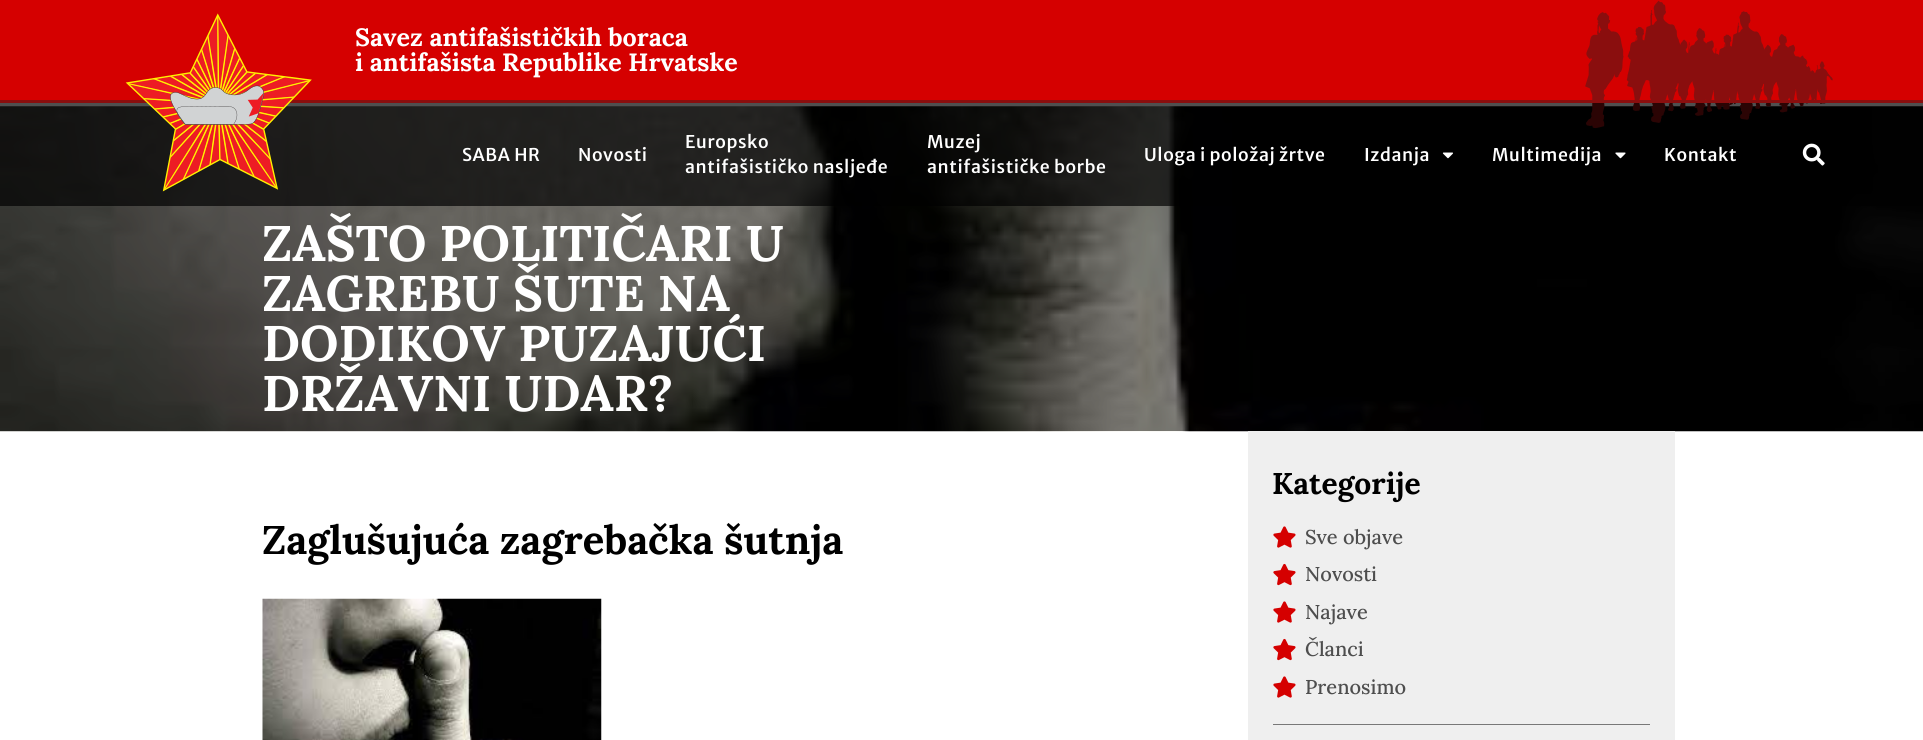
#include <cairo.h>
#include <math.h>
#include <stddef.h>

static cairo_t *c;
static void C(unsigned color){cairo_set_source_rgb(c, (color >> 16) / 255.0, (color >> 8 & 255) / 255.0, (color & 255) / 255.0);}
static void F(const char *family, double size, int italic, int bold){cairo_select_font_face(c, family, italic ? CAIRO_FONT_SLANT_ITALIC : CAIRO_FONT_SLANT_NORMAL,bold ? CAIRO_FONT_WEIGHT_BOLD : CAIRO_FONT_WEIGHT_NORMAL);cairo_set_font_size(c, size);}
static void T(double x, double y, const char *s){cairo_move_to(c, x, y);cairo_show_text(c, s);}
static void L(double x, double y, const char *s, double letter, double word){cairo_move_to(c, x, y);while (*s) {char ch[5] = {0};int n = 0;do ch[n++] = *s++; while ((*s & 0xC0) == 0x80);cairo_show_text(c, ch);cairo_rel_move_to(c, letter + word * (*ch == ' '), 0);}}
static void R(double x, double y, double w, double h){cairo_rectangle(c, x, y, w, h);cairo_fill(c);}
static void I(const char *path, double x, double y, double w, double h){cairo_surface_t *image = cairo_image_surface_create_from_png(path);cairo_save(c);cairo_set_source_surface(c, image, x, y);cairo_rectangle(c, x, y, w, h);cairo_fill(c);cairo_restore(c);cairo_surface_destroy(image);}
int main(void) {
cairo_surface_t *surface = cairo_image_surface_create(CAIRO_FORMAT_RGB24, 1923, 740);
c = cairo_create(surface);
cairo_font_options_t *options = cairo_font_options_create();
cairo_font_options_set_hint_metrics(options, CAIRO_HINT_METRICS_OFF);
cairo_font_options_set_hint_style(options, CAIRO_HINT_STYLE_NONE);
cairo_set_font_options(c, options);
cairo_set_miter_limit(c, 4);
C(0xffffff);
cairo_paint(c);
C(0xd50000);
R(0,0,1923,100);
F("Lora",25,0,1);
C(0xffffff);
T(355,46,"Savez antifašističkih boraca");
T(355,71,"i antifašista Republike Hrvatske");
I("6.png",0,106,1923,326);
I("1.png",1585,0,248,129);
cairo_set_source_rgba(c,0,0,0,0.69);
R(0,103,1923,103);
C(0x8a0e0e);
R(0,100,1923,3);
I("2.png",125,13,187,179);
F("Merriweather Sans Medium",17.5,0,0);
C(0xffffff);
L(462,161,"SABA HR",.6,0);
L(578,161,"Novosti",.6,0);
L(685,148,"Europsko",.6,0);
L(685,173,"antifašističko nasljeđe",.6,0);
L(927,148,"Muzej",.6,0);
L(927,173,"antifašističke borbe",.6,0);
L(1144,161,"Uloga i položaj žrtve",.6,0);
L(1364,161,"Izdanja",.6,0);
I("3.png",1442,152,11,7);
L(1492,161,"Multimedija",.6,0);
I("4.png",1615,152,11,7);
L(1664,161,"Kontakt",.6,0);
I("5.png",1802,143,23,23);
F("Lora",50,0,1);
T(262,261,"ZAŠTO POLITIČARI U");
T(262,311,"ZAGREBU ŠUTE NA");
T(262,361,"DODIKOV PUZAJUĆI");
T(262,411,"DRŽAVNI UDAR?");
F("Lora",40,0,1);
C(0x000000);
T(262,554,"Zaglušujuća zagrebačka šutnja");
I("7.png",262,598,340,142);
C(0xefefef);
R(1248,431,427,309);
F("Lora",30,0,1);
C(0x000000);
T(1272,494,"Kategorije");
I("8.png",1273,526,23,22);
F("Lora Medium",20,0,0);
C(0x4e4e4e);
T(1305,544,"Sve objave");
I("9.png",1273,563,23,23);
T(1305,581,"Novosti");
I("8.png",1273,601,23,22);
T(1305,619,"Najave");
I("9.png",1273,638,23,23);
T(1305,656,"Članci");
I("8.png",1273,676,23,22);
T(1305,694,"Prenosimo");
C(0x787878);
R(1273,724,377,1);
cairo_surface_write_to_png(surface, "o.png");
cairo_font_options_destroy(options);
cairo_destroy(c);
cairo_surface_destroy(surface);
return 0;
}
